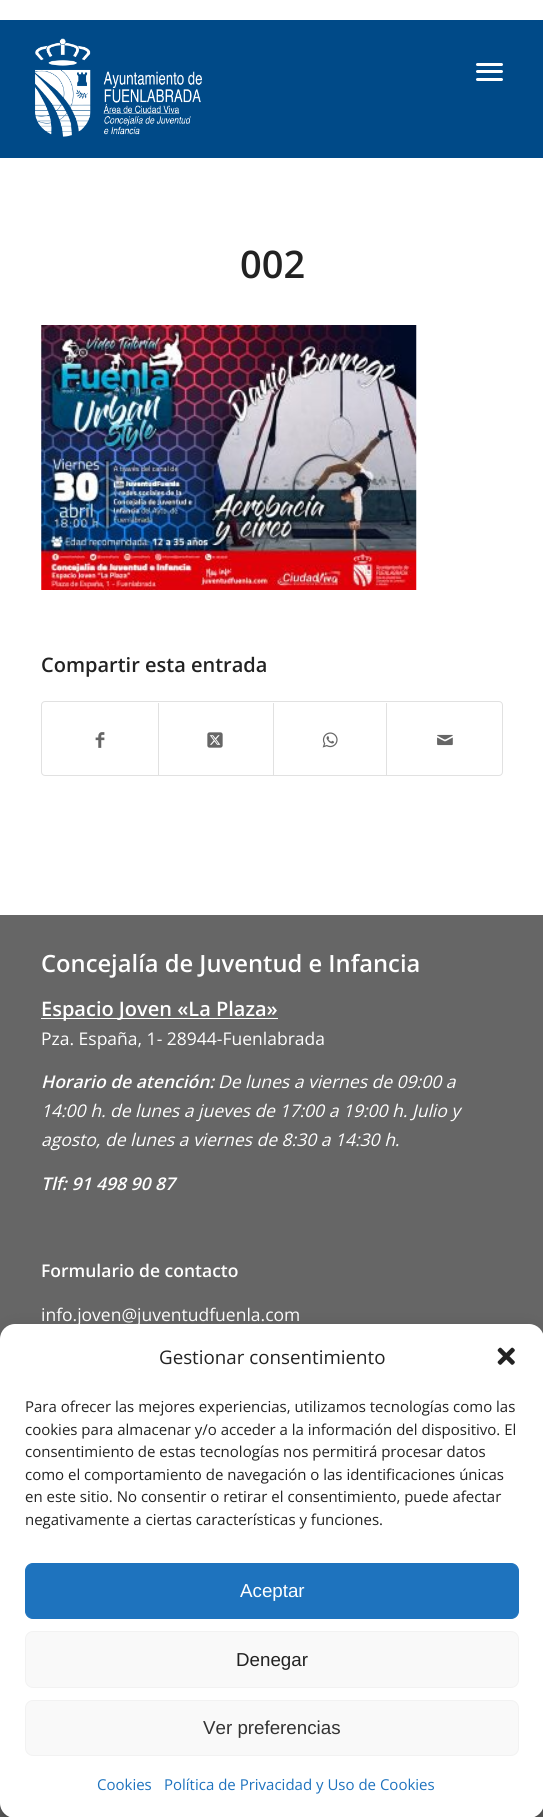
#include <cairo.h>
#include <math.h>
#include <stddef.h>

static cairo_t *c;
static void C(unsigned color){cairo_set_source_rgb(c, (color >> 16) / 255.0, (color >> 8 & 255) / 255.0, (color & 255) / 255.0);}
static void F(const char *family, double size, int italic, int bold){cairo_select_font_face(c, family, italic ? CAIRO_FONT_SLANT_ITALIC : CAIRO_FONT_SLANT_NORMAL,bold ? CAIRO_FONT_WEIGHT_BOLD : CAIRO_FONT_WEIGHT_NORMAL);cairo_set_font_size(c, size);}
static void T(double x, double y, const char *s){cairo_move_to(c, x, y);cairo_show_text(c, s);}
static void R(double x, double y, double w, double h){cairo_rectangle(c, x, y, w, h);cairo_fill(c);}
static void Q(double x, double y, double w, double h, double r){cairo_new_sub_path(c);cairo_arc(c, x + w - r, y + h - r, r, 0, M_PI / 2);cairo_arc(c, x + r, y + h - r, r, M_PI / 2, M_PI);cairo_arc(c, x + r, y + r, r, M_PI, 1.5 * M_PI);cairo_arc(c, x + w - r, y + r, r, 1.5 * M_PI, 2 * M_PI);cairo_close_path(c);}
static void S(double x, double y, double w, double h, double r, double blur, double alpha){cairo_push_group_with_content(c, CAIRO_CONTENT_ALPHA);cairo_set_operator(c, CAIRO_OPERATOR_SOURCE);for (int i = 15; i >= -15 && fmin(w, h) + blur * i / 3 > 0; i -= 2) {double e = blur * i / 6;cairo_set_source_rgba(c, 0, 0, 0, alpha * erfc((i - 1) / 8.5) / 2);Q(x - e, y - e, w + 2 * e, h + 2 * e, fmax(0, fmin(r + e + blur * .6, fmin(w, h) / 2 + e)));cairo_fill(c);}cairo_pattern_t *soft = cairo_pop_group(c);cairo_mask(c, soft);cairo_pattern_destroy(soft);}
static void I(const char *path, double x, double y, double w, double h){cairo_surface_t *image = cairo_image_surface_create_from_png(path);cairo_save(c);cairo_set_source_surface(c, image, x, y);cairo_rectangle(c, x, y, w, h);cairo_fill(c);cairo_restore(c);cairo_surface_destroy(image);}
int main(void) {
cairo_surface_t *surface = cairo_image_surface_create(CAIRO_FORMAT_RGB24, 543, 1817);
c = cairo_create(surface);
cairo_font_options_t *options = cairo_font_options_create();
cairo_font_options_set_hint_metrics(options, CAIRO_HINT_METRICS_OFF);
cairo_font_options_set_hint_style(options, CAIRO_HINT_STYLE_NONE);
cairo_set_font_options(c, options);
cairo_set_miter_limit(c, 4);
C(0xffffff);
cairo_paint(c);
C(0x004a88);
R(0,20,543,138);
I("1.png",35,38,167,99);
C(0xffffff);
Q(476,70,27,3,1.5);
cairo_fill(c);
Q(476,63,27,3,1.5);
cairo_fill(c);
Q(476,78,27,3,1.5);
cairo_fill(c);
F("Open Sans SemiBold",38,0,0);
C(0x222222);
T(240,278,"002");
I("2.png",41,325,376,265);
F("Open Sans SemiBold",20,0,0);
T(41,672,"Compartir esta entrada");
Q(41.5,701.5,461,74,3.5);
C(0xe1e1e1);
cairo_set_line_width(c,1);
cairo_stroke(c);
I("3.png",95,732,10,16);
R(158,703,1,72);
I("4.png",207,732,16,16);
R(273,703,1,72);
I("5.png",322,732,16,16);
R(386,703,1,72);
I("6.png",437,734,16,12);
C(0x666666);
R(0,915,543,902);
F("Open Sans SemiBold",23.75,0,0);
C(0xffffff);
T(41,972,"Concejalía de Juventud e Infancia");
R(41,1018,237,1);
F("Open Sans SemiBold",20,0,0);
T(41,1016,"Espacio Joven «La Plaza»");
F("Open Sans",17.5,0,0);
T(41,1045,"Pza. España, 1- 28944-Fuenlabrada");
F("Open Sans SemiBold",17.5,1,0);
T(41,1088,"Horario de atención:");
F("Open Sans",17.5,1,0);
T(218,1088,"De lunes a viernes de 09:00 a");
T(41,1117,"14:00 h. de lunes a jueves de 17:00 a 19:00 h. Julio y");
T(41,1146,"agosto, de lunes a viernes de 8:30 a 14:30 h.");
F("Open Sans SemiBold",17.5,1,0);
T(41,1190,"Tlf: 91 498 90 87");
F("Open Sans SemiBold",17.5,0,0);
T(41,1277,"Formulario de contacto");
F("Open Sans",17.5,0,0);
T(41,1321,"info.joven@juventudfuenla.com");
C(0x000000);
S(0,1331,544,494,15,4,.23);
S(0,1336,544,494,15,12.5,.19);
C(0xffffff);
Q(0,1324,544,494,15);
cairo_fill(c);
F("Open Sans",18.75,0,0);
C(0x222222);
T(159,1364,"Gestionar consentimiento");
I("7.png",497,1347,18,18);
F("Open Sans",15,0,0);
T(25,1412,"Para ofrecer las mejores experiencias, utilizamos tecnologías como las");
T(25,1435,"cookies para almacenar y/o acceder a la información del dispositivo. El");
T(25,1457,"consentimiento de estas tecnologías nos permitirá procesar datos");
T(25,1480,"como el comportamiento de navegación o las identificaciones únicas");
T(25,1502,"en este sitio. No consentir o retirar el consentimiento, puede afectar");
T(25,1525,"negativamente a ciertas características y funciones.");
C(0x1e73be);
Q(25.5,1563.5,493,55,7.5);
cairo_fill_preserve(c);
cairo_stroke(c);
F("Liberation Sans",18.75,0,0);
C(0xffffff);
T(240,1597,"Aceptar");
C(0xf9f9f9);
Q(25.5,1631.5,493,56,7.5);
cairo_fill_preserve(c);
C(0xf2f2f2);
cairo_stroke(c);
C(0x222222);
T(236,1666,"Denegar");
C(0xf9f9f9);
Q(25.5,1700.5,493,55,7.5);
cairo_fill_preserve(c);
C(0xf2f2f2);
cairo_stroke(c);
C(0x333333);
T(203,1734,"Ver preferencias");
F("Open Sans",15,0,0);
C(0x1e73be);
T(97,1790,"Cookies");
T(164,1790,"Política de Privacidad y Uso de Cookies");
cairo_surface_write_to_png(surface, "o.png");
cairo_font_options_destroy(options);
cairo_destroy(c);
cairo_surface_destroy(surface);
return 0;
}
